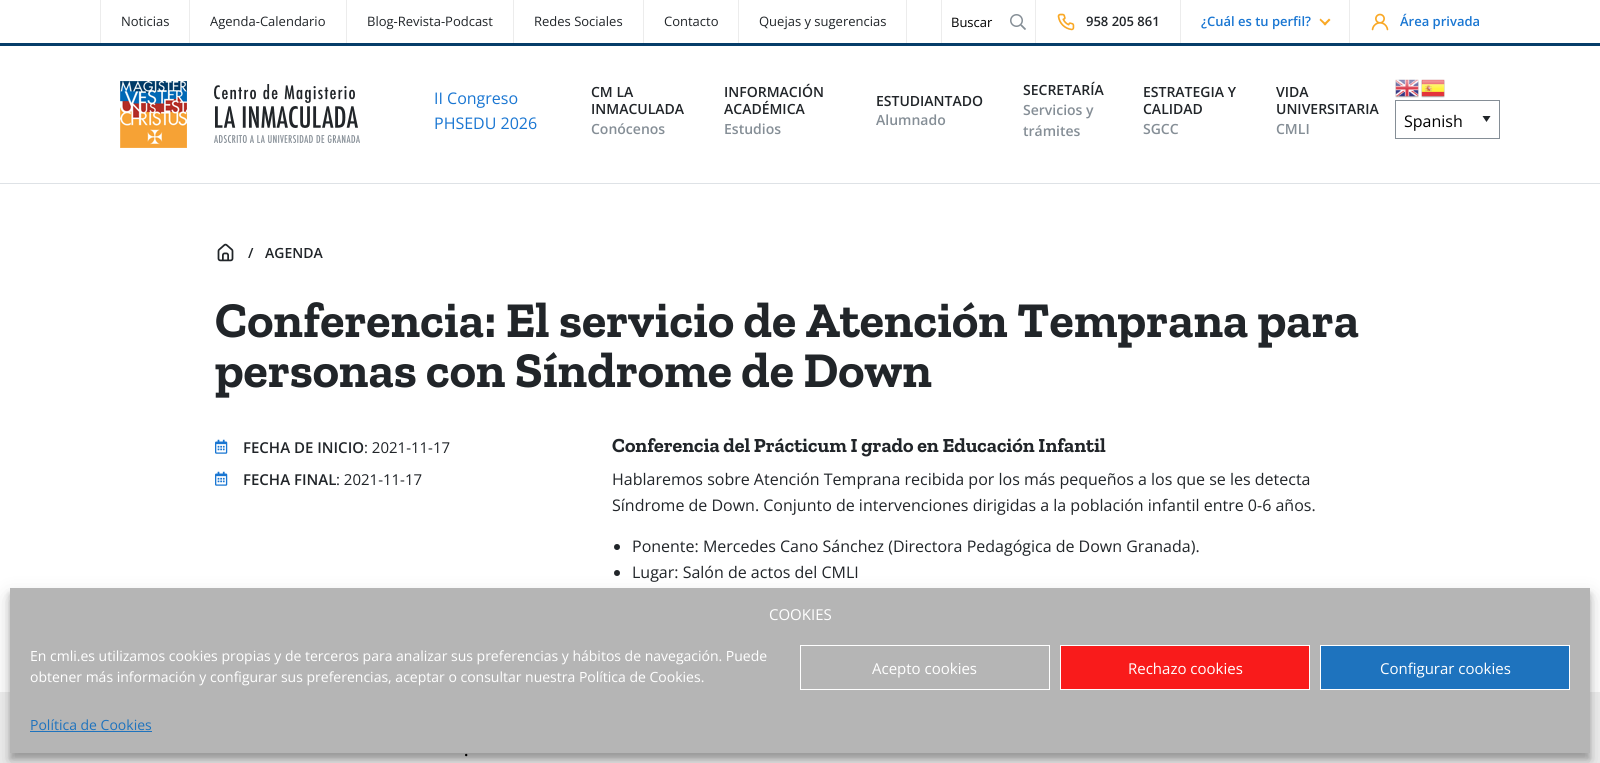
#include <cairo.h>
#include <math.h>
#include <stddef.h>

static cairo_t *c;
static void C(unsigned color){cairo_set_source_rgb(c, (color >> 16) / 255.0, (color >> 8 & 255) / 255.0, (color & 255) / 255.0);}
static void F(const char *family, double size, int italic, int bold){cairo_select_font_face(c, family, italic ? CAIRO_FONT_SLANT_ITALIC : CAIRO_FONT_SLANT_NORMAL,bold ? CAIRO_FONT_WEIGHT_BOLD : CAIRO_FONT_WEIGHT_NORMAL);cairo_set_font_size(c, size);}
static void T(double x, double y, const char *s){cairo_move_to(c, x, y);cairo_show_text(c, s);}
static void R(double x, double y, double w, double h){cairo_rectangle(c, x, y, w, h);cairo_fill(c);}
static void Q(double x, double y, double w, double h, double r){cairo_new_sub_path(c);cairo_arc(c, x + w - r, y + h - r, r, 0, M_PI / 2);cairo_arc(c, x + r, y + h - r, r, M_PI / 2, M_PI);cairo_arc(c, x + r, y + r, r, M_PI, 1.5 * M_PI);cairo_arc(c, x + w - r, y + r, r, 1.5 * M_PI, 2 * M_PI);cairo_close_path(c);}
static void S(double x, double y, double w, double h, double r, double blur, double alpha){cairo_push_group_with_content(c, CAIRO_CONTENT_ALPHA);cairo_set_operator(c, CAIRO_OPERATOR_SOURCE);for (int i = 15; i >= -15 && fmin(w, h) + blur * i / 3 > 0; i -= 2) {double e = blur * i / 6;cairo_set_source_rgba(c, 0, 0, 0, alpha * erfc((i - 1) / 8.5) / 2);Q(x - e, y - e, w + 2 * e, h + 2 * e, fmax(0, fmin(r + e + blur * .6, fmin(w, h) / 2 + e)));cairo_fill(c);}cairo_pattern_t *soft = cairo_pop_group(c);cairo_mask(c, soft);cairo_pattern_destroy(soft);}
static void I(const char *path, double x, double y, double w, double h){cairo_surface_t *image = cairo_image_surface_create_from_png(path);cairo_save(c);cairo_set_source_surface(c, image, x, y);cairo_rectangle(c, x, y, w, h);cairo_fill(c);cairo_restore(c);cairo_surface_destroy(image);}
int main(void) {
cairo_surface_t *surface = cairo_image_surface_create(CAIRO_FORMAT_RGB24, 1600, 763);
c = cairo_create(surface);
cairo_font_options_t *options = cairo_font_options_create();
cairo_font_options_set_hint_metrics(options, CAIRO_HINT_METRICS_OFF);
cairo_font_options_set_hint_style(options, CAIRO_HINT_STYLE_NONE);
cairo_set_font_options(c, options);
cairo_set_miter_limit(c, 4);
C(0xffffff);
cairo_paint(c);
C(0xdee2e6);
R(0,183,1600,1);
C(0x063d69);
R(0,43,1600,3);
C(0xececec);
R(100,0,1,43);
F("Open Sans",13,0,0);
C(0x212529);
T(121,26,"Noticias");
C(0xececec);
R(189,0,1,43);
C(0x212529);
T(210,26,"Agenda-Calendario");
C(0xececec);
R(346,0,1,43);
C(0x212529);
T(367,26,"Blog-Revista-Podcast");
C(0xececec);
R(513,0,1,43);
C(0x212529);
T(534,26,"Redes Sociales");
C(0xececec);
R(643,0,1,43);
C(0x212529);
T(664,26,"Contacto");
C(0xececec);
R(906,0,1,43);
R(738,0,1,43);
C(0x212529);
T(759,26,"Quejas y sugerencias");
C(0xececec);
R(1035,0,1,43);
R(941,0,1,43);
C(0x000000);
T(951,27,"Buscar");
I("1.png",1010,14,16,16);
I("2.png",1057,13,18,18);
F("Open Sans SemiBold",13,0,0);
C(0x212529);
T(1086,26,"958 205 861");
C(0xececec);
R(1349,0,1,43);
R(1180,0,1,43);
C(0x1976d2);
T(1201,26,"¿Cuál es tu perfil?");
C(0xf9a825);
cairo_new_path(c);
cairo_move_to(c,1329,18.5);
cairo_line_to(c,1330.5,20);
cairo_line_to(c,1325,25.5);
cairo_line_to(c,1323.5,24);
cairo_close_path(c);
cairo_fill(c);
cairo_new_path(c);
cairo_move_to(c,1320.5,18.5);
cairo_line_to(c,1326.5,24);
cairo_line_to(c,1325,25.5);
cairo_line_to(c,1319.5,20);
cairo_close_path(c);
cairo_fill(c);
I("3.png",1371,13,18,18);
C(0x1976d2);
T(1400,26,"Área privada");
I("4.png",120,81,240,67);
F("Open Sans",16,0,0);
T(434,104,"II Congreso");
T(434,129,"PHSEDU 2026");
F("Open Sans SemiBold",14,0,0);
C(0x212529);
T(591,97,"CM LA");
T(591,114,"INMACULADA");
C(0x858e96);
T(591,134,"Conócenos");
C(0x212529);
T(724,97,"INFORMACIÓN");
T(724,114,"ACADÉMICA");
C(0x858e96);
T(724,134,"Estudios");
C(0x212529);
T(876,106,"ESTUDIANTADO");
C(0x858e96);
T(876,125,"Alumnado");
C(0x212529);
T(1023,95,"SECRETARÍA");
C(0x858e96);
T(1023,115,"Servicios y");
T(1023,136,"trámites");
C(0x212529);
T(1143,97,"ESTRATEGIA Y");
T(1143,114,"CALIDAD");
C(0x858e96);
T(1143,134,"SGCC");
C(0x212529);
T(1276,97,"VIDA");
T(1276,114,"UNIVERSITARIA");
C(0x858e96);
T(1276,134,"CMLI");
I("5.png",1395,79,24,19);
I("6.png",1421,79,24,19);
C(0x212529);
cairo_new_path(c);
cairo_move_to(c,1482.5,116);
cairo_line_to(c,1490.5,116);
cairo_line_to(c,1486.5,122);
cairo_close_path(c);
cairo_fill(c);
cairo_rectangle(c,1395.5,100.5,104,38);
C(0x858e96);
cairo_set_line_width(c,1);
cairo_stroke(c);
F("Open Sans",16,0,0);
C(0x000000);
T(1404,127,"Spanish");
I("7.png",217,243,17,19);
F("Open Sans SemiBold",14,0,0);
C(0x212529);
T(248,258,"/");
T(265,258,"AGENDA");
F("Zilla Slab",50,0,1);
T(215,337,"Conferencia: El servicio de Atención Temprana para");
T(215,387,"personas con Síndrome de Down");
I("8.png",215,439,13,15);
F("Open Sans SemiBold",15,0,0);
T(243,453,"FECHA DE INICIO");
F("Open Sans",15,0,0);
T(364,453,": 2021-11-17");
I("8.png",215,471,13,15);
F("Open Sans SemiBold",15,0,0);
T(243,485,"FECHA FINAL");
F("Open Sans",15,0,0);
T(336,485,": 2021-11-17");
F("Zilla Slab",20,0,1);
T(612,452,"Conferencia del Prácticum I grado en Educación Infantil");
F("Open Sans",16,0,0);
T(612,485,"Hablaremos sobre Atención Temprana recibida por los más pequeños a los que se les detecta");
T(612,511,"Síndrome de Down. Conjunto de intervenciones dirigidas a la población infantil entre 0-6 años.");
cairo_new_path(c);
cairo_arc(c,617,547,3,0,2 * M_PI);
cairo_fill(c);
T(632,552,"Ponente: Mercedes Cano Sánchez (Directora Pedagógica de Down Granada).");
cairo_new_path(c);
cairo_arc(c,617,573,3,0,2 * M_PI);
cairo_fill(c);
T(632,578,"Lugar: Salón de actos del CMLI");
C(0xefefef);
R(0,692,1600,71);
F("Open Sans SemiBold",16,0,0);
C(0x000000);
T(464,756,".");
C(0x000000);
S(10,594,1580,165,0,3,.23);
S(10,598,1580,165,0,10,.19);
C(0xb5b5b5);
R(10,588,1580,165);
F("Open Sans",15,0,0);
C(0xffffff);
T(769,620,"COOKIES");
F("Open Sans",14,0,0);
T(30,661,"En cmli.es utilizamos cookies propias y de terceros para analizar sus preferencias y hábitos de navegación. Puede");
T(30,682,"obtener más información y configurar sus preferencias, aceptar o consultar nuestra Política de Cookies.");
cairo_rectangle(c,800.5,645.5,249,44);
cairo_stroke(c);
F("Open Sans",15,0,0);
T(872,674,"Acepto cookies");
C(0xf91b1b);
cairo_rectangle(c,1060.5,645.5,249,44);
cairo_fill_preserve(c);
C(0xffffff);
cairo_stroke(c);
T(1128,674,"Rechazo cookies");
C(0x1e73be);
cairo_rectangle(c,1320.5,645.5,249,44);
cairo_fill_preserve(c);
C(0xffffff);
cairo_stroke(c);
T(1380,674,"Configurar cookies");
F("Open Sans",14,0,0);
C(0x1e73be);
T(30,730,"Política de Cookies");
R(30,731,122,1);
cairo_surface_write_to_png(surface, "o.png");
cairo_font_options_destroy(options);
cairo_destroy(c);
cairo_surface_destroy(surface);
return 0;
}
